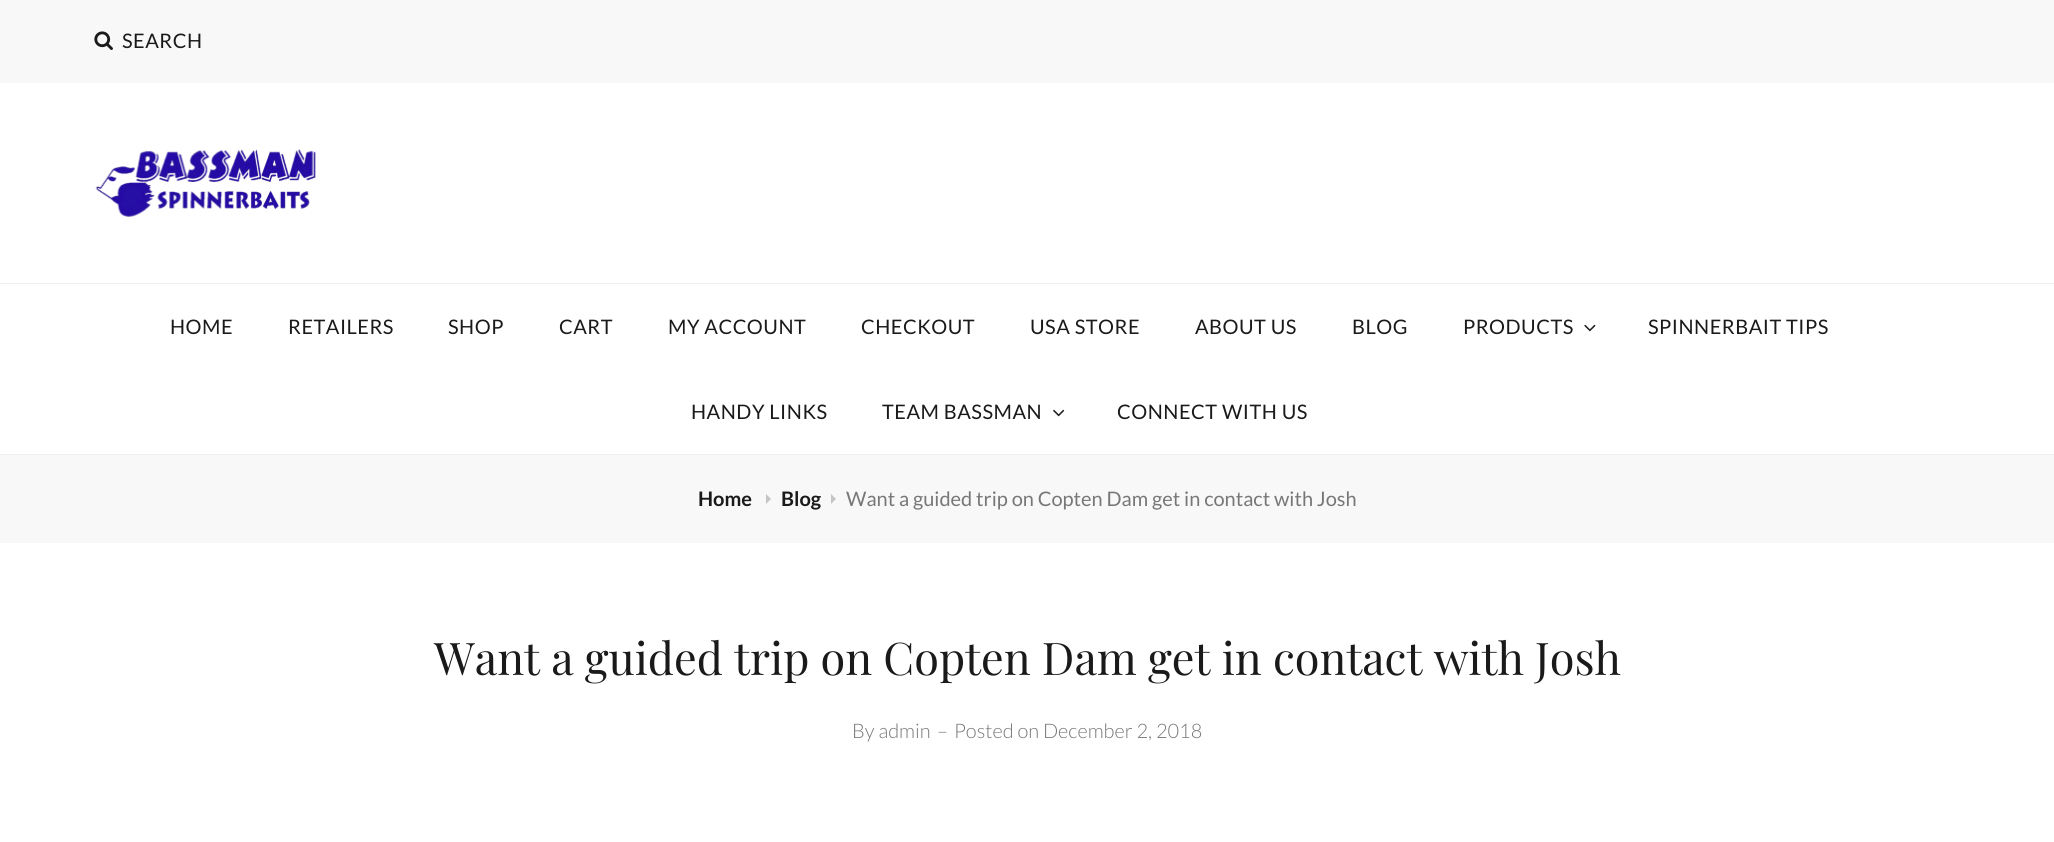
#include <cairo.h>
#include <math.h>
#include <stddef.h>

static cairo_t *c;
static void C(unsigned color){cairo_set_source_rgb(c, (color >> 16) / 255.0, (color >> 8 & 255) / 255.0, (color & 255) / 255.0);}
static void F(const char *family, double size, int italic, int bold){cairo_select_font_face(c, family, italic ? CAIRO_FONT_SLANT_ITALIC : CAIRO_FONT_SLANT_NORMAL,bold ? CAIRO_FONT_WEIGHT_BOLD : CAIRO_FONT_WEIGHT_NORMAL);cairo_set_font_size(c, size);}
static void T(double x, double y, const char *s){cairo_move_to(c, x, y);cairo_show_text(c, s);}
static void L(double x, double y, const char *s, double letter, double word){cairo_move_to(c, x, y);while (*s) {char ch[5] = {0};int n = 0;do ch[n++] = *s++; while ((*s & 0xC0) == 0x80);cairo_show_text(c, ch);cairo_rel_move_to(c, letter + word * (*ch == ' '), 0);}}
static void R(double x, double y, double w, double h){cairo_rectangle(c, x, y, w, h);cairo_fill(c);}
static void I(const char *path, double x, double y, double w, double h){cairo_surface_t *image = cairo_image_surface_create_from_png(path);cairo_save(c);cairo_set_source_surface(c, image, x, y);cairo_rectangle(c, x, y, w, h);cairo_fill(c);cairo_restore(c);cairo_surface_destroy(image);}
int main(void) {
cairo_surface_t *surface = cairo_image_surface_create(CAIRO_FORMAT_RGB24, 2054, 842);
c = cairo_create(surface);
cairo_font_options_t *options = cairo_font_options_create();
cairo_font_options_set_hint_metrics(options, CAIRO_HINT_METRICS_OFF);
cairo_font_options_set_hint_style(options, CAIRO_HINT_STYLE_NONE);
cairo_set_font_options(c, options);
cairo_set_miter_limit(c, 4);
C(0xffffff);
cairo_paint(c);
C(0xf8f8f8);
R(0,0,2054,83);
I("1.png",94,31,19,19);
F("Lato",20,0,0);
C(0x1a1a1a);
L(122,48,"SEARCH",.5,0);
I("2.png",95,149,221,68);
C(0xeeeeee);
R(0,283,2054,1);
R(0,454,2054,1);
C(0x1a1a1a);
L(170,334,"HOME",.5,0);
L(288,334,"RETAILERS",.5,0);
L(448,334,"SHOP",.5,0);
L(559,334,"CART",.5,0);
L(668,334,"MY ACCOUNT",.5,0);
L(861,334,"CHECKOUT",.5,0);
L(1030,334,"USA STORE",.5,0);
L(1195,334,"ABOUT US",.5,0);
L(1352,334,"BLOG",.5,0);
L(1463,334,"PRODUCTS",.5,0);
I("3.png",1584,324,12,8);
L(1648,334,"SPINNERBAIT TIPS",.5,0);
L(691,419,"HANDY LINKS",.5,0);
L(882,419,"TEAM BASSMAN",.5,0);
I("4.png",1053,409,12,8);
L(1117,419,"CONNECT WITH US",.5,0);
C(0xf8f8f8);
R(0,455,2054,88);
F("Lato",20,0,1);
C(0x1a1a1a);
T(698,506,"Home");
C(0xc5c5c5);
cairo_new_path(c);
cairo_move_to(c,766,504);
cairo_line_to(c,766,494);
cairo_line_to(c,771,499);
cairo_close_path(c);
cairo_fill(c);
C(0x1a1a1a);
T(781,506,"Blog");
C(0xc5c5c5);
cairo_new_path(c);
cairo_move_to(c,831,504);
cairo_line_to(c,831,494);
cairo_line_to(c,836,499);
cairo_close_path(c);
cairo_fill(c);
F("Lato",20,0,0);
C(0x777777);
T(846,506,"Want a guided trip on Copten Dam get in contact with Josh");
F("Playfair Display",45,0,0);
C(0x1a1a1a);
T(434,675,"Want a guided trip on Copten Dam get in contact with Josh");
F("Lato Light",20,0,0);
C(0x777777);
T(852,738,"By admin");
T(937,738,"–");
T(954,738,"Posted on December 2, 2018");
cairo_surface_write_to_png(surface, "o.png");
cairo_font_options_destroy(options);
cairo_destroy(c);
cairo_surface_destroy(surface);
return 0;
}
